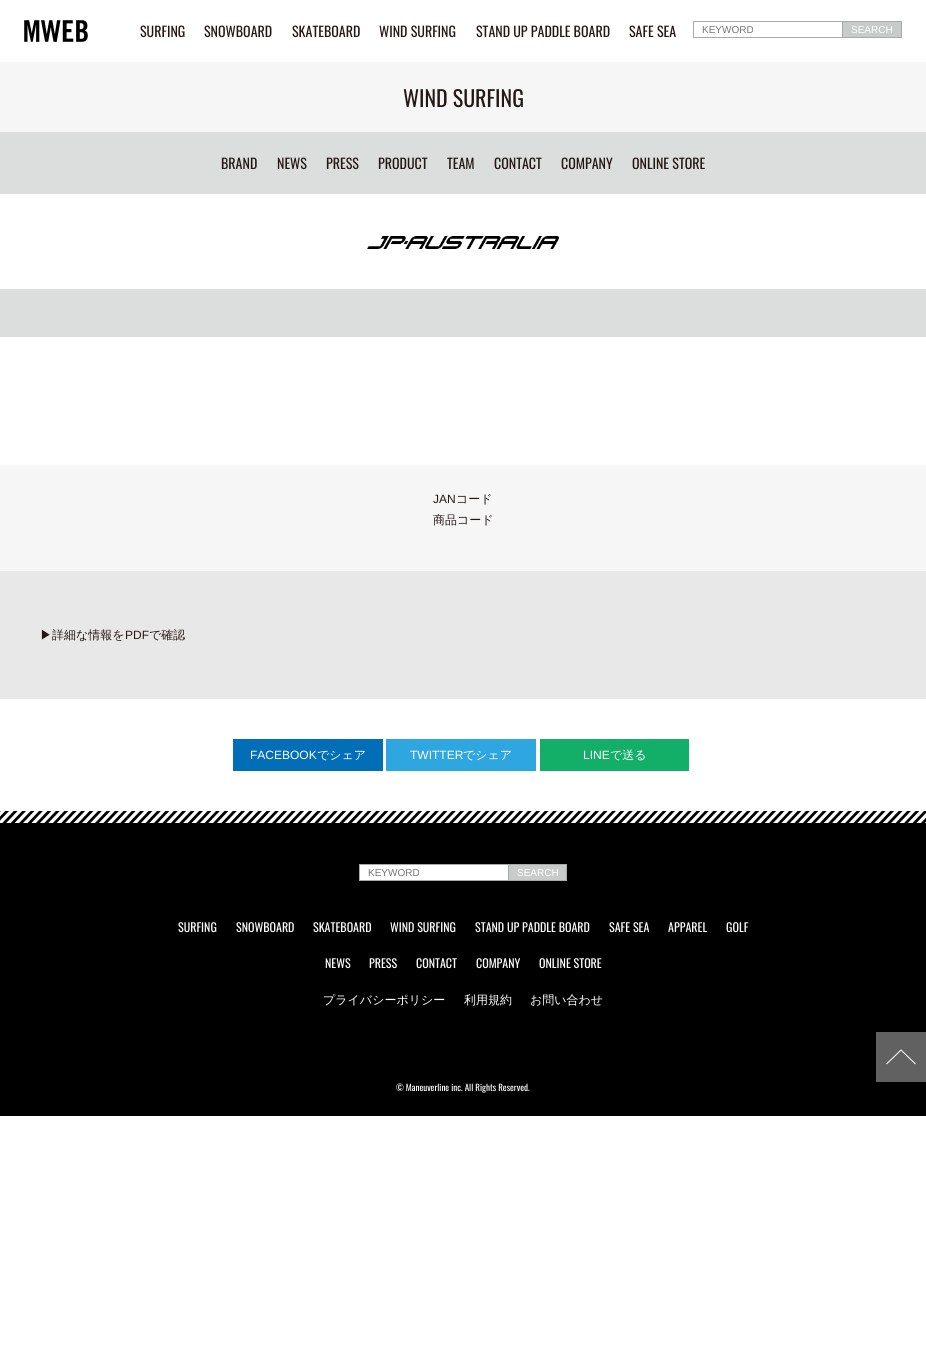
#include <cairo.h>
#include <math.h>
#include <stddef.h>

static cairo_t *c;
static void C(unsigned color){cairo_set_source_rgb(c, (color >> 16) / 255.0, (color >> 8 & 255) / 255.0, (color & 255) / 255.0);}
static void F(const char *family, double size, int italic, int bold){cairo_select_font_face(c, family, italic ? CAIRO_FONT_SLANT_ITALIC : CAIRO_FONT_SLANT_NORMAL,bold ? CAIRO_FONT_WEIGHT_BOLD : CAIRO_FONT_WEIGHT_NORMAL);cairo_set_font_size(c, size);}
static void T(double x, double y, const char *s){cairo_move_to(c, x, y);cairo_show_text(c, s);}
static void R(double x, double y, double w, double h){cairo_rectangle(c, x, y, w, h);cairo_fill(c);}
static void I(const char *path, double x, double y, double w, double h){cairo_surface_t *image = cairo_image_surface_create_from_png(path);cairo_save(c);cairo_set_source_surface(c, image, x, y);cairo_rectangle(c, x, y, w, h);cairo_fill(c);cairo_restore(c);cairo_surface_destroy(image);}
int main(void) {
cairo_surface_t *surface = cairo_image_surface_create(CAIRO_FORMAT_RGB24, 926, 1353);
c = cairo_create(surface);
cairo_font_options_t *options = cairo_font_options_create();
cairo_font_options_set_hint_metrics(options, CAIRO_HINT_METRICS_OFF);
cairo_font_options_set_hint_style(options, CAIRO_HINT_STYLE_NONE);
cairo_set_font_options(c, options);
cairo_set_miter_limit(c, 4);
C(0xffffff);
cairo_paint(c);
I("1.png",24,20,64,22);
F("Oswald",14,0,0);
C(0x231815);
T(140,37,"SURFING");
T(204,37,"SNOWBOARD");
T(292,37,"SKATEBOARD");
T(379,37,"WIND SURFING");
T(476,37,"STAND UP PADDLE BOARD");
T(629,37,"SAFE SEA");
cairo_rectangle(c,693.5,21.5,149,16);
C(0xa8a9a9);
cairo_set_line_width(c,1);
cairo_stroke(c);
F("Liberation Sans",10,0,0);
C(0x757575);
T(702,33,"KEYWORD");
C(0xc9caca);
cairo_rectangle(c,842.5,21.5,59,16);
cairo_fill_preserve(c);
C(0xa8a9a9);
cairo_stroke(c);
C(0xffffff);
T(851,33,"SEARCH");
C(0xf6f6f6);
R(0,62,926,70);
F("Oswald",22,0,0);
C(0x231815);
T(403,107,"WIND SURFING");
C(0xdcdddd);
R(0,132,926,62);
F("Oswald",14,0,0);
C(0x231815);
T(221,169,"BRAND");
T(277,169,"NEWS");
T(326,169,"PRESS");
T(378,169,"PRODUCT");
T(447,169,"TEAM");
T(494,169,"CONTACT");
T(561,169,"COMPANY");
T(632,169,"ONLINE STORE");
I("2.png",367,236,192,13);
C(0xdcdddd);
R(0,289,926,48);
C(0xf6f6f6);
R(0,465,926,106);
F("Liberation Sans",12,0,0);
C(0x231815);
T(433,503,"JAN");
F("WenQuanYi Zen Hei Medium",12,0,0);
T(456,503,"コード");
T(433,524,"商品コード");
C(0xe8e8e8);
R(0,571,926,128);
C(0x231815);
T(40,639,"▶詳細な情報を");
F("Liberation Sans",12,0,0);
T(125,639,"PDF");
F("WenQuanYi Zen Hei Medium",12,0,0);
T(149,639,"で確認");
C(0x036eb8);
R(233,739,150,32);
F("Liberation Sans",12,0,0);
C(0xffffff);
T(250,759,"FACEBOOK");
F("WenQuanYi Zen Hei Medium",12,0,0);
T(317,759,"でシェア");
C(0x2ea7e0);
R(386,739,150,32);
F("Liberation Sans",12,0,0);
C(0xffffff);
T(410,759,"TWITTER");
F("WenQuanYi Zen Hei Medium",12,0,0);
T(463,759,"でシェア");
C(0x13ae67);
R(540,739,149,32);
F("Liberation Sans",12,0,0);
C(0xffffff);
T(583,759,"LINE");
F("WenQuanYi Zen Hei Medium",12,0,0);
T(610,759,"で送る");
C(0x000000);
R(0,811,926,305);
I("3.png",0,811,926,12);
C(0xffffff);
cairo_rectangle(c,359.5,864.5,149,16);
cairo_fill_preserve(c);
C(0xa8a9a9);
cairo_stroke(c);
F("Liberation Sans",10,0,0);
C(0x757575);
T(368,876,"KEYWORD");
C(0xc9caca);
cairo_rectangle(c,508.5,864.5,58,16);
cairo_fill_preserve(c);
C(0xa8a9a9);
cairo_stroke(c);
C(0xffffff);
T(517,876,"SEARCH");
F("Oswald",12,0,0);
T(178,932,"SURFING");
T(236,932,"SNOWBOARD");
T(313,932,"SKATEBOARD");
T(390,932,"WIND SURFING");
T(475,932,"STAND UP PADDLE BOARD");
T(609,932,"SAFE SEA");
T(668,932,"APPAREL");
T(726,932,"GOLF");
T(325,968,"NEWS");
T(369,968,"PRESS");
T(416,968,"CONTACT");
T(476,968,"COMPANY");
T(539,968,"ONLINE STORE");
F("WenQuanYi Zen Hei Medium",12,0,0);
T(323,1004,"プライバシーポリシー");
T(464,1004,"利用規約");
T(530,1004,"お問い合わせ");
F("Oswald",9,0,0);
T(396,1091,"© Maneuverline inc. All Rights Reserved.");
C(0x616161);
R(876,1032,50,50);
cairo_new_path(c);
cairo_move_to(c,915.5,1064);
cairo_line_to(c,901,1050);
cairo_line_to(c,886.5,1064);
C(0xffffff);
cairo_stroke(c);
cairo_surface_write_to_png(surface, "o.png");
cairo_font_options_destroy(options);
cairo_destroy(c);
cairo_surface_destroy(surface);
return 0;
}
